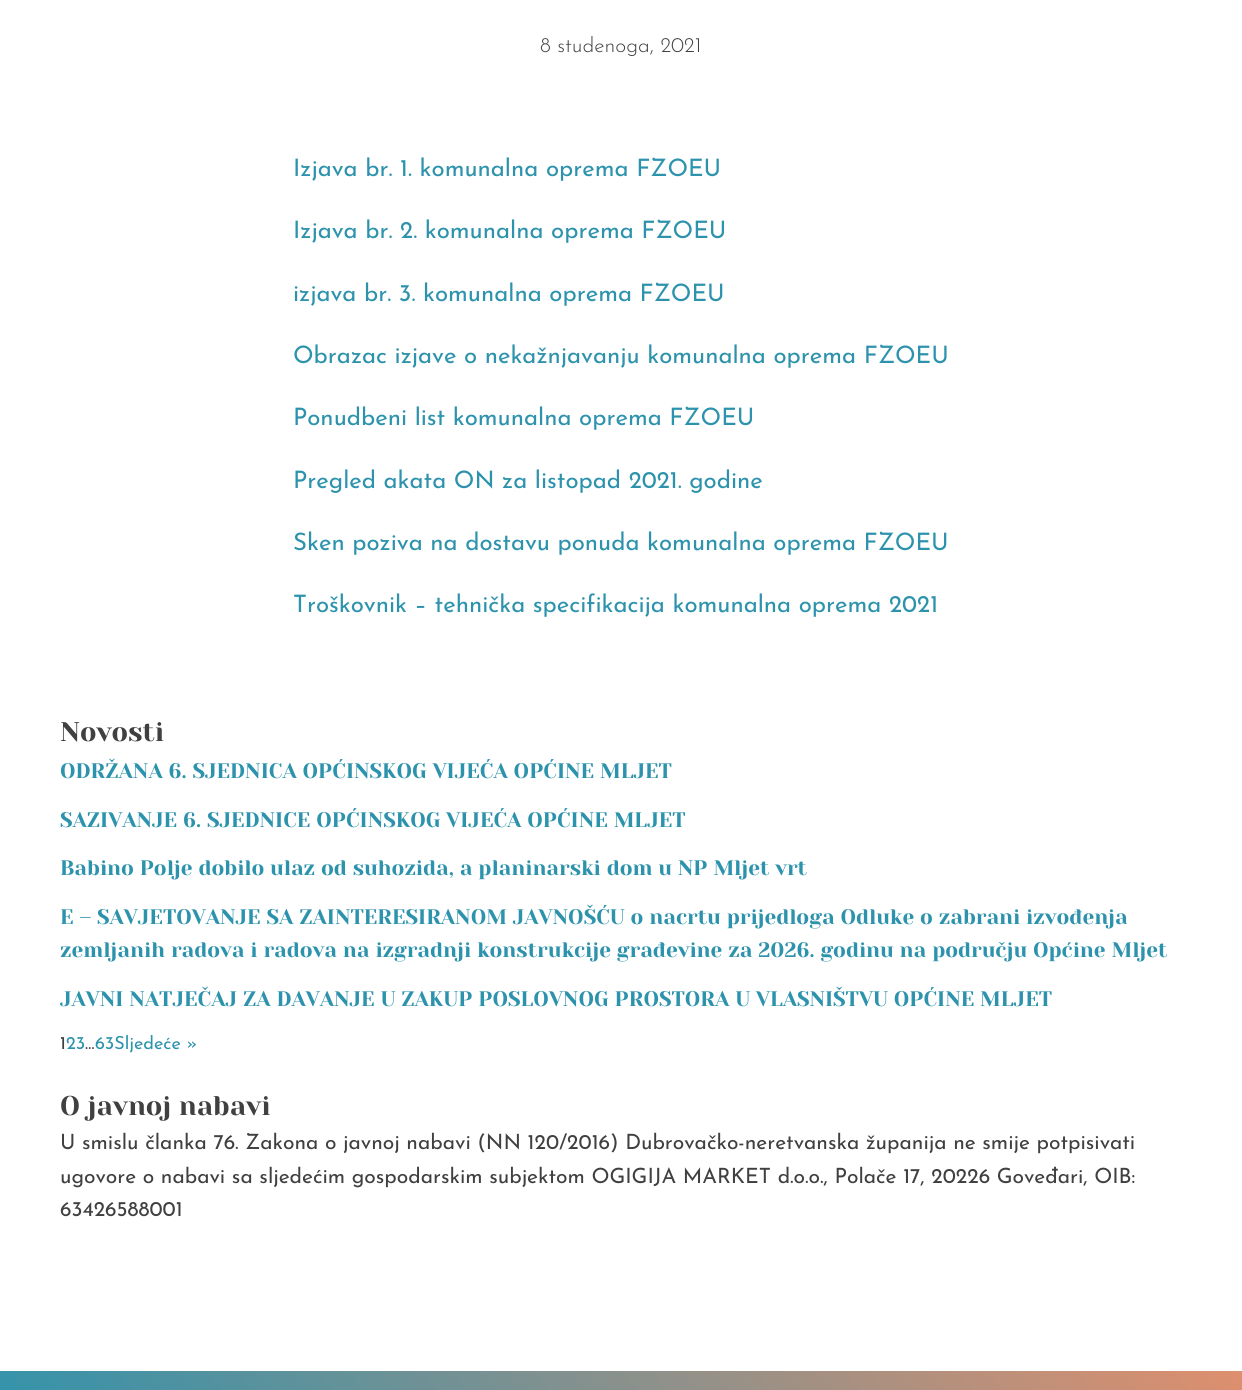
#include <cairo.h>
#include <math.h>
#include <stddef.h>

static cairo_t *c;
static void C(unsigned color){cairo_set_source_rgb(c, (color >> 16) / 255.0, (color >> 8 & 255) / 255.0, (color & 255) / 255.0);}
static void F(const char *family, double size, int italic, int bold){cairo_select_font_face(c, family, italic ? CAIRO_FONT_SLANT_ITALIC : CAIRO_FONT_SLANT_NORMAL,bold ? CAIRO_FONT_WEIGHT_BOLD : CAIRO_FONT_WEIGHT_NORMAL);cairo_set_font_size(c, size);}
static void T(double x, double y, const char *s){cairo_move_to(c, x, y);cairo_show_text(c, s);}
static void R(double x, double y, double w, double h){cairo_rectangle(c, x, y, w, h);cairo_fill(c);}
int main(void) {
cairo_surface_t *surface = cairo_image_surface_create(CAIRO_FORMAT_RGB24, 1242, 1390);
c = cairo_create(surface);
cairo_font_options_t *options = cairo_font_options_create();
cairo_font_options_set_hint_metrics(options, CAIRO_HINT_METRICS_OFF);
cairo_font_options_set_hint_style(options, CAIRO_HINT_STYLE_NONE);
cairo_set_font_options(c, options);
cairo_set_miter_limit(c, 4);
cairo_pattern_t *gradient;
C(0xffffff);
cairo_paint(c);
F("Josefin Sans Light",21,0,0);
C(0x404040);
T(540,52,"8 studenoga, 2021");
F("Josefin Sans",24,0,0);
C(0x2d93ad);
T(293,176,"Izjava br. 1. komunalna oprema FZOEU");
T(293,238,"Izjava br. 2. komunalna oprema FZOEU");
T(293,301,"izjava br. 3. komunalna oprema FZOEU");
T(293,363,"Obrazac izjave o nekažnjavanju komunalna oprema FZOEU");
T(293,425,"Ponudbeni list komunalna oprema FZOEU");
T(293,488,"Pregled akata ON za listopad 2021. godine");
T(293,550,"Sken poziva na dostavu ponuda komunalna oprema FZOEU");
T(293,612,"Troškovnik – tehnička specifikacija komunalna oprema 2021");
F("Yeseva One",27,0,0);
C(0x404040);
T(60,741,"Novosti");
F("Yeseva One",21,0,0);
C(0x2d93ad);
T(60,778,"ODRŽANA 6. SJEDNICA OPĆINSKOG VIJEĆA OPĆINE MLJET");
T(60,827,"SAZIVANJE 6. SJEDNICE OPĆINSKOG VIJEĆA OPĆINE MLJET");
T(60,875,"Babino Polje dobilo ulaz od suhozida, a planinarski dom u NP Mljet vrt");
T(60,924,"E – SAVJETOVANJE SA ZAINTERESIRANOM JAVNOŠĆU o nacrtu prijedloga Odluke o zabrani izvođenja");
T(60,957,"zemljanih radova i radova na izgradnji konstrukcije građevine za 2026. godinu na području Općine Mljet");
T(60,1006,"JAVNI NATJEČAJ ZA DAVANJE U ZAKUP POSLOVNOG PROSTORA U VLASNIŠTVU OPĆINE MLJET");
F("Josefin Sans",18,0,0);
C(0x404040);
T(60,1049,"1");
C(0x2d93ad);
T(66,1049,"23");
C(0x404040);
T(85,1049,"…");
C(0x2d93ad);
T(95,1049,"63Sljedeće »");
F("Yeseva One",27,0,0);
C(0x404040);
T(60,1115,"O javnoj nabavi");
F("Josefin Sans",21,0,0);
T(60,1149,"U smislu članka 76. Zakona o javnoj nabavi (NN 120/2016) Dubrovačko-neretvanska županija ne smije potpisivati");
T(60,1183,"ugovore o nabavi sa sljedećim gospodarskim subjektom OGIGIJA MARKET d.o.o., Polače 17, 20226 Goveđari, OIB:");
T(60,1216,"63426588001");
gradient = cairo_pattern_create_linear(292,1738,950,1079);
cairo_pattern_add_color_stop_rgba(gradient,0,0.176,0.576,0.678,1);
cairo_pattern_add_color_stop_rgba(gradient,1,0.871,0.561,0.431,1);
cairo_set_source(c,gradient);
cairo_pattern_destroy(gradient);
R(0,1371,1242,19);
cairo_surface_write_to_png(surface, "o.png");
cairo_font_options_destroy(options);
cairo_destroy(c);
cairo_surface_destroy(surface);
return 0;
}
